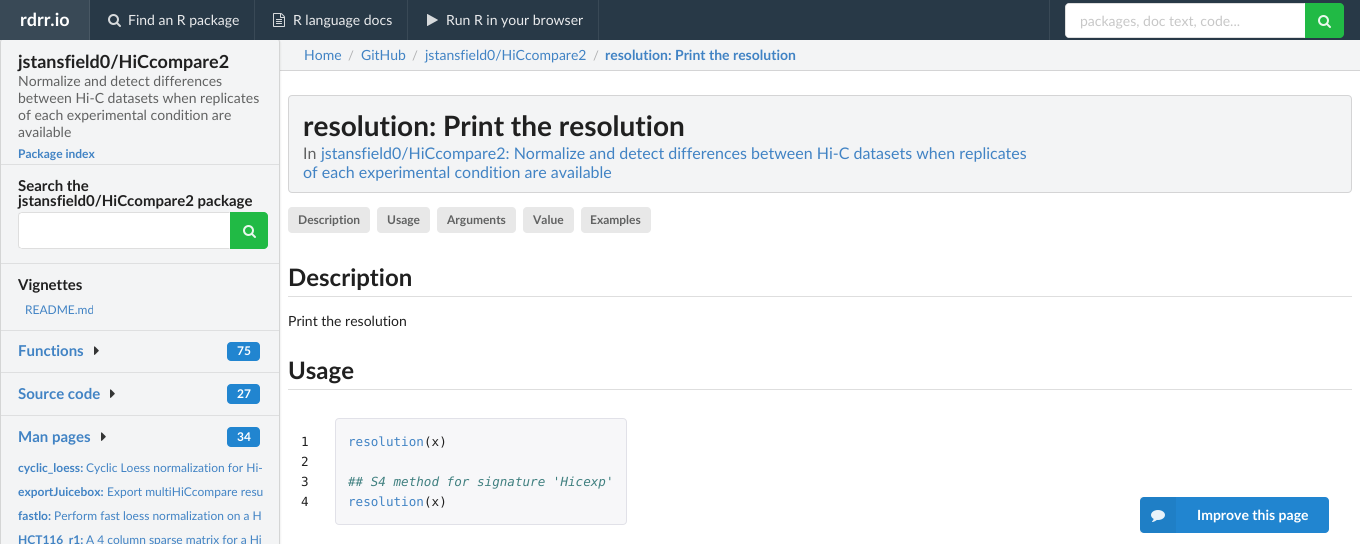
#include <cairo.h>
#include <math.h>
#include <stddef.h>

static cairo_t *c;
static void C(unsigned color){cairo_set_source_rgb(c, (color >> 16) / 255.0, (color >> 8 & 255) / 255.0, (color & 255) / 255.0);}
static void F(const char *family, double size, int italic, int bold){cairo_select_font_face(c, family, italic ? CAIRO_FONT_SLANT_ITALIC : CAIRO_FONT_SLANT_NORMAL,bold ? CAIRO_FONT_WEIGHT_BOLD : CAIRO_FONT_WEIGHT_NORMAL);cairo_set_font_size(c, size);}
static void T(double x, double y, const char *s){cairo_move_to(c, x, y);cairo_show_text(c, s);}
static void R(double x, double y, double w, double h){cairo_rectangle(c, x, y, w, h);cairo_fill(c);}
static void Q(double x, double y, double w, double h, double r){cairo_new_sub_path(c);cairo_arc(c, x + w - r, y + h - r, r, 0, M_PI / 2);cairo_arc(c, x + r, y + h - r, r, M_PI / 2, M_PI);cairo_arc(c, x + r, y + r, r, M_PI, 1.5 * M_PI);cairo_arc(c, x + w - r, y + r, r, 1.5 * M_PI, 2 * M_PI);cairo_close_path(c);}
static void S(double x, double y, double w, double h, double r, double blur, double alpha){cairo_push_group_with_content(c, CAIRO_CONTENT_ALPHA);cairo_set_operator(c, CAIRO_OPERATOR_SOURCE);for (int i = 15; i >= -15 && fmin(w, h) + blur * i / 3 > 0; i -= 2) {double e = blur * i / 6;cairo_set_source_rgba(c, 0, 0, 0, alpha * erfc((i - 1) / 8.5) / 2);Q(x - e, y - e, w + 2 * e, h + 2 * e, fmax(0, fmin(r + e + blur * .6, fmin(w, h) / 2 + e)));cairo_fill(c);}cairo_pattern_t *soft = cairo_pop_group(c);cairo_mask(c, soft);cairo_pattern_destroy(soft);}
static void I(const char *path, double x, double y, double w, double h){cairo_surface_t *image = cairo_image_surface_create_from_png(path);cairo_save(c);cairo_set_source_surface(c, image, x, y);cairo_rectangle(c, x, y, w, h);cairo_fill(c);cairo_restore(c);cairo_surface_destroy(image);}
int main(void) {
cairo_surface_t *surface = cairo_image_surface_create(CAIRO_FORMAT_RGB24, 1360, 544);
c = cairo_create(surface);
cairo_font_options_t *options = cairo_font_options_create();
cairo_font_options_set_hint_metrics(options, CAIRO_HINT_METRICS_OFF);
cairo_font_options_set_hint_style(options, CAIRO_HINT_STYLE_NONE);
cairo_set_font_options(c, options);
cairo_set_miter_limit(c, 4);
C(0xffffff);
cairo_paint(c);
C(0xf3f4f5);
R(280,40,1080,30);
C(0xd4d4d5);
R(280,70,1080,1);
C(0x222426);
S(0,39,280,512,4,1,.15);
C(0xf3f4f5);
Q(0,38,280,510,4);
cairo_fill(c);
Q(.5,38.5,279,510,3.5);
cairo_set_source_rgba(c,0.133,0.141,0.149,0.15);
cairo_set_line_width(c,1);
cairo_stroke(c);
C(0x283947);
R(90,0,1270,40);
C(0x394956);
R(0,0,89,40);
F("Lato",18,0,1);
C(0xffffff);
T(20,26,"rdrr.io");
C(0x495864);
R(89,0,1,40);
I("1.png",108,14,13,13);
F("Lato",14,0,0);
C(0xeaebed);
T(128,25,"Find an R package");
C(0x394956);
R(254,0,1,40);
I("2.png",273,13,12,14);
C(0xeaebed);
T(293,25,"R language docs");
C(0x394956);
R(407,0,1,40);
I("3.png",427,14,11,12);
C(0xeaebed);
T(446,25,"Run R in your browser");
C(0x394956);
R(598,0,1,40);
R(1049,0,1,40);
C(0xffffff);
cairo_new_path(c);
cairo_move_to(c,1069,3);
cairo_line_to(c,1305,3);
cairo_line_to(c,1305,38);
cairo_line_to(c,1069,38);
cairo_curve_to(c,1067,38,1065,36,1065,34);
cairo_line_to(c,1065,7);
cairo_curve_to(c,1065,5,1067,3,1069,3);
cairo_close_path(c);
cairo_fill(c);
cairo_set_source_rgba(c,0.133,0.141,0.149,0.15);
cairo_new_path(c);
cairo_move_to(c,1069,3);
cairo_line_to(c,1066,4);
cairo_line_to(c,1067,5);
cairo_line_to(c,1067,4);
cairo_line_to(c,1304,4);
cairo_line_to(c,1305,3);
cairo_close_path(c);
cairo_fill(c);
cairo_new_path(c);
cairo_move_to(c,1305,38);
cairo_line_to(c,1304,37);
cairo_line_to(c,1067,37);
cairo_line_to(c,1067,36);
cairo_line_to(c,1066,37);
cairo_line_to(c,1069,38);
cairo_close_path(c);
cairo_fill(c);
cairo_new_path(c);
cairo_move_to(c,1065,7);
cairo_line_to(c,1065,34);
cairo_curve_to(c,1065,35,1065.5,36,1066,37);
cairo_line_to(c,1067,36);
cairo_curve_to(c,1066,36,1066,35,1066,34);
cairo_line_to(c,1066,7);
cairo_curve_to(c,1066,6,1066,5,1067,5);
cairo_line_to(c,1066,4);
cairo_curve_to(c,1065.5,5,1065,6,1065,7);
cairo_close_path(c);
cairo_fill(c);
C(0xc7c7c7);
T(1080,26,"packages, doc text, code...");
C(0x21ba45);
cairo_new_path(c);
cairo_move_to(c,1305,3);
cairo_line_to(c,1340,3);
cairo_curve_to(c,1342,3,1344,5,1344,7);
cairo_line_to(c,1344,34);
cairo_curve_to(c,1344,36,1342,38,1340,38);
cairo_line_to(c,1305,38);
cairo_close_path(c);
cairo_fill(c);
I("4.png",1318,15,13,13);
F("Lato",18,0,1);
C(0x202020);
T(18,68,"jstansfield0/HiCcompare2");
F("Lato",14,0,0);
C(0x616262);
T(18,86,"Normalize and detect differences");
T(18,103,"between Hi-C datasets when replicates");
T(18,120,"of each experimental condition are");
T(18,137,"available");
F("Lato",12,0,1);
C(0x4183c4);
T(18,158,"Package index");
C(0xdedfe0);
R(1,164,278,1);
F("Lato",15,0,1);
C(0x202020);
T(18,191,"Search the");
T(18,206,"jstansfield0/HiCcompare2 package");
C(0xffffff);
cairo_new_path(c);
cairo_move_to(c,22,212);
cairo_line_to(c,230,212);
cairo_line_to(c,230,249);
cairo_line_to(c,22,249);
cairo_curve_to(c,20,249,18,247,18,245);
cairo_line_to(c,18,216);
cairo_curve_to(c,18,214,20,212,22,212);
cairo_close_path(c);
cairo_fill(c);
cairo_set_source_rgba(c,0.133,0.141,0.149,0.15);
cairo_new_path(c);
cairo_move_to(c,22,212);
cairo_line_to(c,19,213);
cairo_line_to(c,20,214);
cairo_line_to(c,21,213);
cairo_line_to(c,229,213);
cairo_line_to(c,230,212);
cairo_close_path(c);
cairo_fill(c);
C(0xdedede);
cairo_new_path(c);
cairo_move_to(c,230,249);
cairo_line_to(c,229,248);
cairo_line_to(c,21,248);
cairo_line_to(c,20,247);
cairo_line_to(c,19,248);
cairo_line_to(c,22,249);
cairo_close_path(c);
cairo_fill(c);
cairo_set_source_rgba(c,0.133,0.141,0.149,0.15);
cairo_new_path(c);
cairo_move_to(c,18,216);
cairo_line_to(c,18,245);
cairo_curve_to(c,18,246,18.5,247,19,248);
cairo_line_to(c,20,247);
cairo_curve_to(c,19,247,19,246,19,245);
cairo_line_to(c,19,216);
cairo_curve_to(c,19,215,19,214,20,214);
cairo_line_to(c,19,213);
cairo_curve_to(c,18.5,214,18,215,18,216);
cairo_close_path(c);
cairo_fill(c);
C(0x21ba45);
cairo_new_path(c);
cairo_move_to(c,230,212);
cairo_line_to(c,264,212);
cairo_curve_to(c,266,212,268,214,268,216);
cairo_line_to(c,268,245);
cairo_curve_to(c,268,247,266,249,264,249);
cairo_line_to(c,230,249);
cairo_close_path(c);
cairo_fill(c);
I("4.png",243,225,13,13);
C(0xdedfe0);
R(1,263,278,1);
C(0x202020);
T(18,290,"Vignettes");
F("Lato",12,0,0);
C(0x4183c4);
T(25,314,"README.md");
C(0xdedfe0);
R(1,330,278,1);
F("Lato",15,0,1);
C(0x4183c4);
T(18,356,"Functions");
I("5.png",94,346,5,9);
C(0x2185d0);
Q(227,342,33,19,4);
cairo_fill(c);
F("Lato",12,0,1);
C(0xffffff);
T(237,355,"75");
C(0xdedfe0);
R(1,372,278,1);
F("Lato",15,0,1);
C(0x4183c4);
T(18,399,"Source code");
I("5.png",110,389,5,9);
C(0x2185d0);
Q(227,384,33,20,4);
cairo_fill(c);
F("Lato",12,0,1);
C(0xffffff);
T(237,398,"27");
C(0xdedfe0);
R(1,415,278,1);
F("Lato",15,0,1);
C(0x4183c4);
T(18,442,"Man pages");
I("5.png",101,432,5,9);
C(0x2185d0);
Q(227,427,33,20,4);
cairo_fill(c);
F("Lato",12,0,1);
C(0xffffff);
T(237,441,"34");
C(0x4183c4);
T(18,472,"cyclic_loess:");
F("Lato",12,0,0);
T(86,472,"Cyclic Loess normalization for Hi-");
F("Lato",12,0,1);
T(18,496,"exportJuicebox:");
F("Lato",12,0,0);
T(107,496,"Export multiHiCcompare resu");
F("Lato",12,0,1);
T(18,520,"fastlo:");
F("Lato",12,0,0);
T(54,520,"Perform fast loess normalization on a H");
F("Lato",12,0,1);
T(18,544,"HCT116_r1:");
F("Lato",12,0,0);
T(86,544,"A 4 column sparse matrix for a Hi");
F("Lato",14,0,0);
T(304,60,"Home");
F("Lato",13,0,0);
C(0xafb0b1);
T(348,60,"/");
F("Lato",14,0,0);
C(0x4183c4);
T(361,60,"GitHub");
F("Lato",13,0,0);
C(0xafb0b1);
T(412,60,"/");
F("Lato",14,0,0);
C(0x4183c4);
T(425,60,"jstansfield0/HiCcompare2");
F("Lato",13,0,0);
C(0xafb0b1);
T(593,60,"/");
F("Lato",14,0,1);
C(0x4183c4);
T(605,60,"resolution: Print the resolution");
C(0xf3f4f5);
Q(288.5,95.5,1063,97,3.5);
cairo_fill_preserve(c);
C(0xd4d4d5);
cairo_stroke(c);
F("Lato",28,0,1);
C(0x202020);
T(303,136,"resolution: Print the resolution");
F("Lato",16,0,0);
C(0x616262);
T(303,159,"In");
C(0x4183c4);
T(321,159,"jstansfield0/HiCcompare2: Normalize and detect differences between Hi-C datasets when replicates");
T(303,178,"of each experimental condition are available");
C(0xe8e8e8);
Q(288,207,82,26,4);
cairo_fill(c);
F("Lato",12,0,1);
C(0x616262);
T(298,224,"Description");
C(0xe8e8e8);
Q(377,207,53,26,4);
cairo_fill(c);
C(0x616262);
T(387,224,"Usage");
C(0xe8e8e8);
Q(437,207,79,26,4);
cairo_fill(c);
C(0x616262);
T(447,224,"Arguments");
C(0xe8e8e8);
Q(523,207,51,26,4);
cairo_fill(c);
C(0x616262);
T(533,224,"Value");
C(0xe8e8e8);
Q(581,207,70,26,4);
cairo_fill(c);
C(0x616262);
T(590,224,"Examples");
C(0xdedede);
R(288,296,1064,1);
F("Lato",24,0,1);
C(0x202020);
T(288,286,"Description");
F("Lato",14,0,0);
T(288,326,"Print the resolution");
C(0xdedede);
R(288,389,1064,1);
F("Lato",24,0,1);
C(0x202020);
T(288,379,"Usage");
F("DejaVu Sans Mono",12.6,0,0);
T(301,446,"1");
T(301,466,"2");
T(301,486,"3");
T(301,506,"4");
C(0xf7f7f9);
Q(335.5,418.5,291,106,3.5);
cairo_fill_preserve(c);
C(0xe1e1e8);
cairo_stroke(c);
C(0x4183c4);
T(348,446,"resolution");
C(0x202020);
T(424,446,"(x)");
F("DejaVu Sans Mono",12.6,1,0);
C(0x408080);
T(348,486,"## S4 method for signature 'Hicexp'");
F("DejaVu Sans Mono",12.6,0,0);
C(0x4183c4);
T(348,506,"resolution");
C(0x202020);
T(424,506,"(x)");
C(0x2185d0);
Q(1140,497,189,36,4);
cairo_fill(c);
cairo_set_source_rgba(c,0,0,0,0.05);
R(1140,497,36,36);
I("6.png",1151,510,14,12);
F("Lato",14,0,1);
C(0xffffff);
T(1197,520,"Improve this page");
cairo_surface_write_to_png(surface, "o.png");
cairo_font_options_destroy(options);
cairo_destroy(c);
cairo_surface_destroy(surface);
return 0;
}
